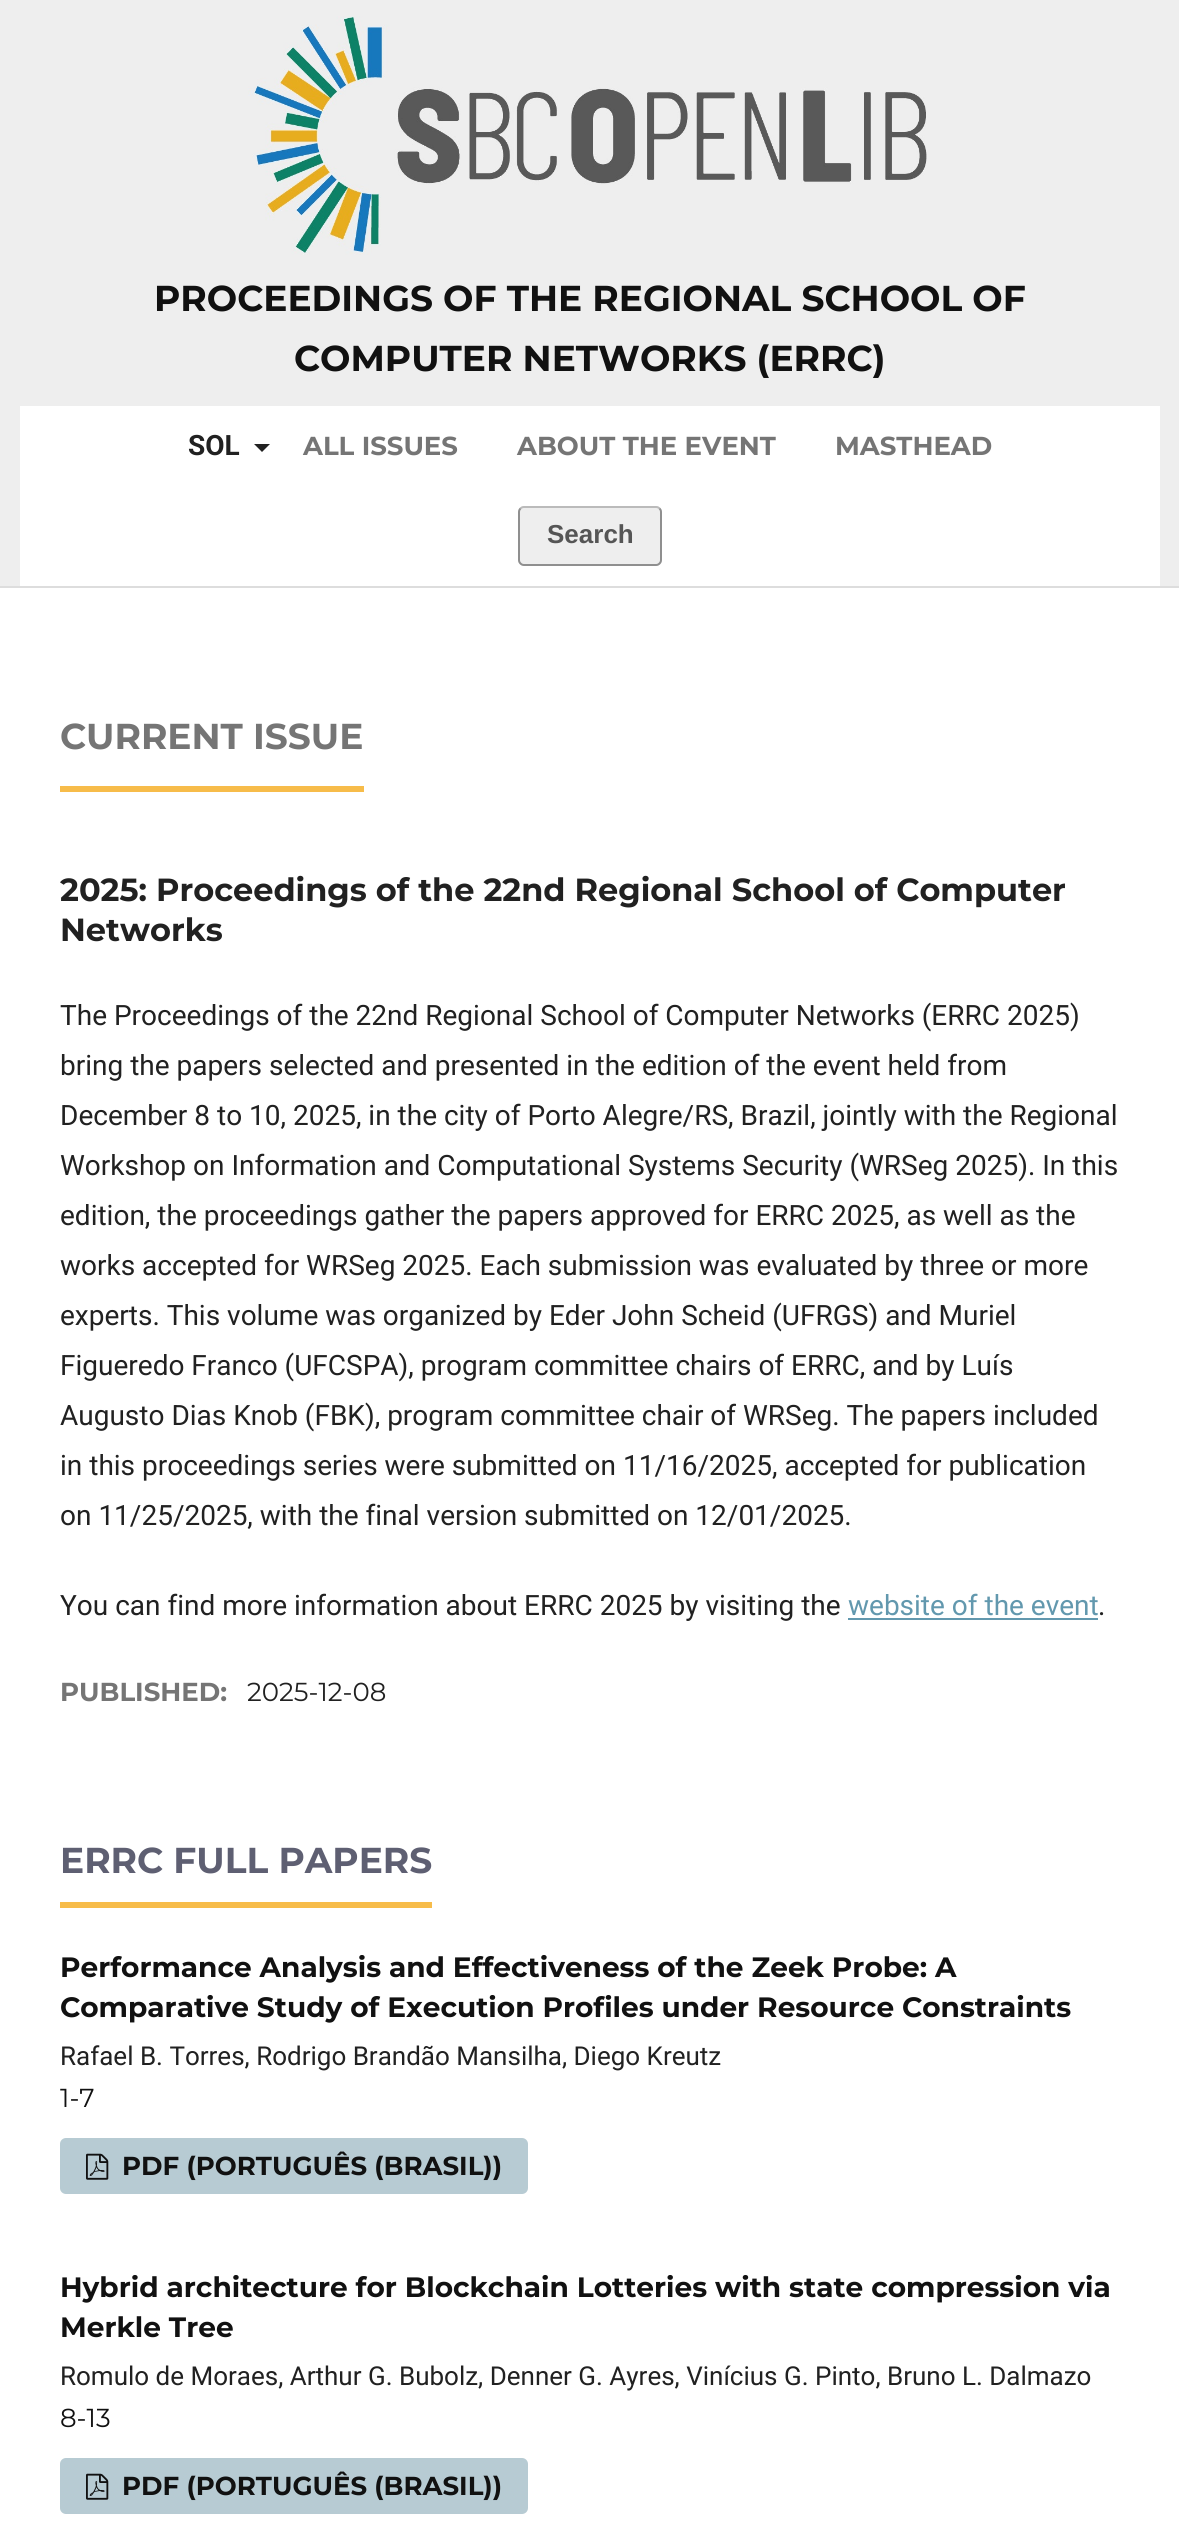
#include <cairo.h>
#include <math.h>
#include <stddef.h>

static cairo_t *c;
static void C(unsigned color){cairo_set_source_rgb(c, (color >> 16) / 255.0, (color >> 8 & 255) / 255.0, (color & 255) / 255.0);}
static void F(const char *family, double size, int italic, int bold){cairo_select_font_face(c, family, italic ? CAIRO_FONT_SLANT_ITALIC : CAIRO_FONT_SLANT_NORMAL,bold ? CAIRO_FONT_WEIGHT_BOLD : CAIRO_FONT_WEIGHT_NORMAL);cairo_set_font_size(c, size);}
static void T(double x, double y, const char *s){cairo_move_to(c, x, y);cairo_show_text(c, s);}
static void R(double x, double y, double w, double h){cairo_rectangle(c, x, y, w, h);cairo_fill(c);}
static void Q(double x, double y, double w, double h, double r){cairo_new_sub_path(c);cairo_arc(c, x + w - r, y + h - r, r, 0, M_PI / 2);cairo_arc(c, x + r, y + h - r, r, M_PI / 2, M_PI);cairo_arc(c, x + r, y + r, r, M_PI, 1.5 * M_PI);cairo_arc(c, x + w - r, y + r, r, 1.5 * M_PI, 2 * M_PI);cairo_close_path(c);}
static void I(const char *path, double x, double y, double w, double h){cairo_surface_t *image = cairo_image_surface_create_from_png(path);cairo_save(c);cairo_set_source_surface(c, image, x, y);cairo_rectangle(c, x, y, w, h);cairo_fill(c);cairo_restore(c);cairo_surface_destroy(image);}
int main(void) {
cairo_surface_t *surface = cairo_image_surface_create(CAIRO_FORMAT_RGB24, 1179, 2521);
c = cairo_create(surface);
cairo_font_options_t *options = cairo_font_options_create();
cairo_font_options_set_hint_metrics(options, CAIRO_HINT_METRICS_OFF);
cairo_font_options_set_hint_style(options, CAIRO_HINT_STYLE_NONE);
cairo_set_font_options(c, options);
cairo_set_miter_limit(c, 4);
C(0xffffff);
cairo_paint(c);
C(0xeeeeee);
R(0,0,1179,586);
C(0xdddddd);
R(0,586,1179,2);
I("1.png",248,16,679,239);
F("Montserrat",36,0,1);
C(0x111111);
T(154,311,"PROCEEDINGS OF THE REGIONAL SCHOOL OF");
T(294,371,"COMPUTER NETWORKS (ERRC)");
C(0xffffff);
R(20,406,1140,180);
F("Roboto",28,0,1);
C(0x212121);
T(188,455,"SOL");
cairo_new_path(c);
cairo_move_to(c,254,444);
cairo_line_to(c,270,444);
cairo_line_to(c,262,452);
cairo_close_path(c);
cairo_fill(c);
F("Montserrat",26,0,1);
C(0x757575);
T(303,455,"ALL ISSUES");
T(517,455,"ABOUT THE EVENT");
T(835,455,"MASTHEAD");
C(0xeeeeee);
Q(518,506,144,60,6);
cairo_fill(c);
cairo_new_path(c);
cairo_move_to(c,520.5,508.5);
cairo_curve_to(c,521.5,507.5,522.5,507,524,507);
cairo_line_to(c,656,507);
cairo_curve_to(c,657.5,507,658.5,507.5,659.5,508.5);
C(0xbbbbbb);
cairo_stroke(c);
cairo_new_path(c);
cairo_move_to(c,659.5,508.5);
cairo_curve_to(c,660.5,509.5,661,510.5,661,512);
cairo_line_to(c,661,560);
cairo_curve_to(c,661,561.5,660.5,562.5,659.5,563.5);
cairo_curve_to(c,658.5,564.5,657.5,565,656,565);
cairo_line_to(c,524,565);
cairo_curve_to(c,522.5,565,521.5,564.5,520.5,563.5);
cairo_curve_to(c,519.5,562.5,519,561.5,519,560);
cairo_line_to(c,519,512);
cairo_curve_to(c,519,510.5,519.5,509.5,520.5,508.5);
cairo_set_source_rgba(c,0,0,0,0.4);
cairo_stroke(c);
F("Liberation Sans",26,0,1);
C(0x555555);
T(547,543,"Search");
C(0xf7bc4a);
R(60,786,304,6);
F("Montserrat",36,0,1);
C(0x757575);
T(60,749,"CURRENT ISSUE");
F("Montserrat",32,0,1);
C(0x212121);
T(60,901,"2025: Proceedings of the 22nd Regional School of Computer");
T(60,941,"Networks");
F("Roboto",28,0,0);
T(60,1025,"The Proceedings of the 22nd Regional School of Computer Networks (ERRC 2025)");
T(60,1075,"bring the papers selected and presented in the edition of the event held from");
T(60,1125,"December 8 to 10, 2025, in the city of Porto Alegre/RS, Brazil, jointly with the Regional");
T(60,1175,"Workshop on Information and Computational Systems Security (WRSeg 2025). In this");
T(60,1225,"edition, the proceedings gather the papers approved for ERRC 2025, as well as the");
T(60,1275,"works accepted for WRSeg 2025. Each submission was evaluated by three or more");
T(60,1325,"experts. This volume was organized by Eder John Scheid (UFRGS) and Muriel");
T(60,1375,"Figueredo Franco (UFCSPA), program committee chairs of ERRC, and by Luís");
T(60,1425,"Augusto Dias Knob (FBK), program committee chair of WRSeg. The papers included");
T(60,1475,"in this proceedings series were submitted on 11/16/2025, accepted for publication");
T(60,1525,"on 11/25/2025, with the final version submitted on 12/01/2025.");
T(60,1615,"You can find more information about ERRC 2025 by visiting the");
C(0x6298ae);
T(848,1615,"website of the event");
R(848,1618,250,2);
C(0x212121);
T(1098,1615,".");
F("Montserrat",26,0,1);
C(0x757575);
T(60,1701,"PUBLISHED:");
F("Montserrat",26,0,0);
C(0x212121);
T(247,1701,"2025-12-08");
C(0xf7bc4a);
R(60,1902,372,6);
F("Montserrat",36,0,1);
C(0x5e5f72);
T(60,1873,"ERRC FULL PAPERS");
F("Montserrat",28,0,1);
C(0x111111);
T(60,1977,"Performance Analysis and Effectiveness of the Zeek Probe: A");
T(60,2017,"Comparative Study of Execution Profiles under Resource Constraints");
F("Roboto",26,0,0);
C(0x212121);
T(60,2065,"Rafael B. Torres, Rodrigo Brandão Mansilha, Diego Kreutz");
F("Montserrat",26,0,0);
C(0x111111);
T(60,2107,"1-7");
C(0xb7cbd3);
Q(60,2138,468,56,6);
cairo_fill(c);
I("2.png",86,2153,23,27);
F("Montserrat",26,0,1);
C(0x111111);
T(122,2175,"PDF (PORTUGUÊS (BRASIL))");
F("Montserrat",28,0,1);
T(60,2297,"Hybrid architecture for Blockchain Lotteries with state compression via");
T(60,2337,"Merkle Tree");
F("Roboto",26,0,0);
C(0x212121);
T(60,2385,"Romulo de Moraes, Arthur G. Bubolz, Denner G. Ayres, Vinícius G. Pinto, Bruno L. Dalmazo");
F("Montserrat",26,0,0);
C(0x111111);
T(60,2427,"8-13");
C(0xb7cbd3);
Q(60,2458,468,56,6);
cairo_fill(c);
I("2.png",86,2473,23,27);
F("Montserrat",26,0,1);
C(0x111111);
T(122,2495,"PDF (PORTUGUÊS (BRASIL))");
cairo_surface_write_to_png(surface, "o.png");
cairo_font_options_destroy(options);
cairo_destroy(c);
cairo_surface_destroy(surface);
return 0;
}
